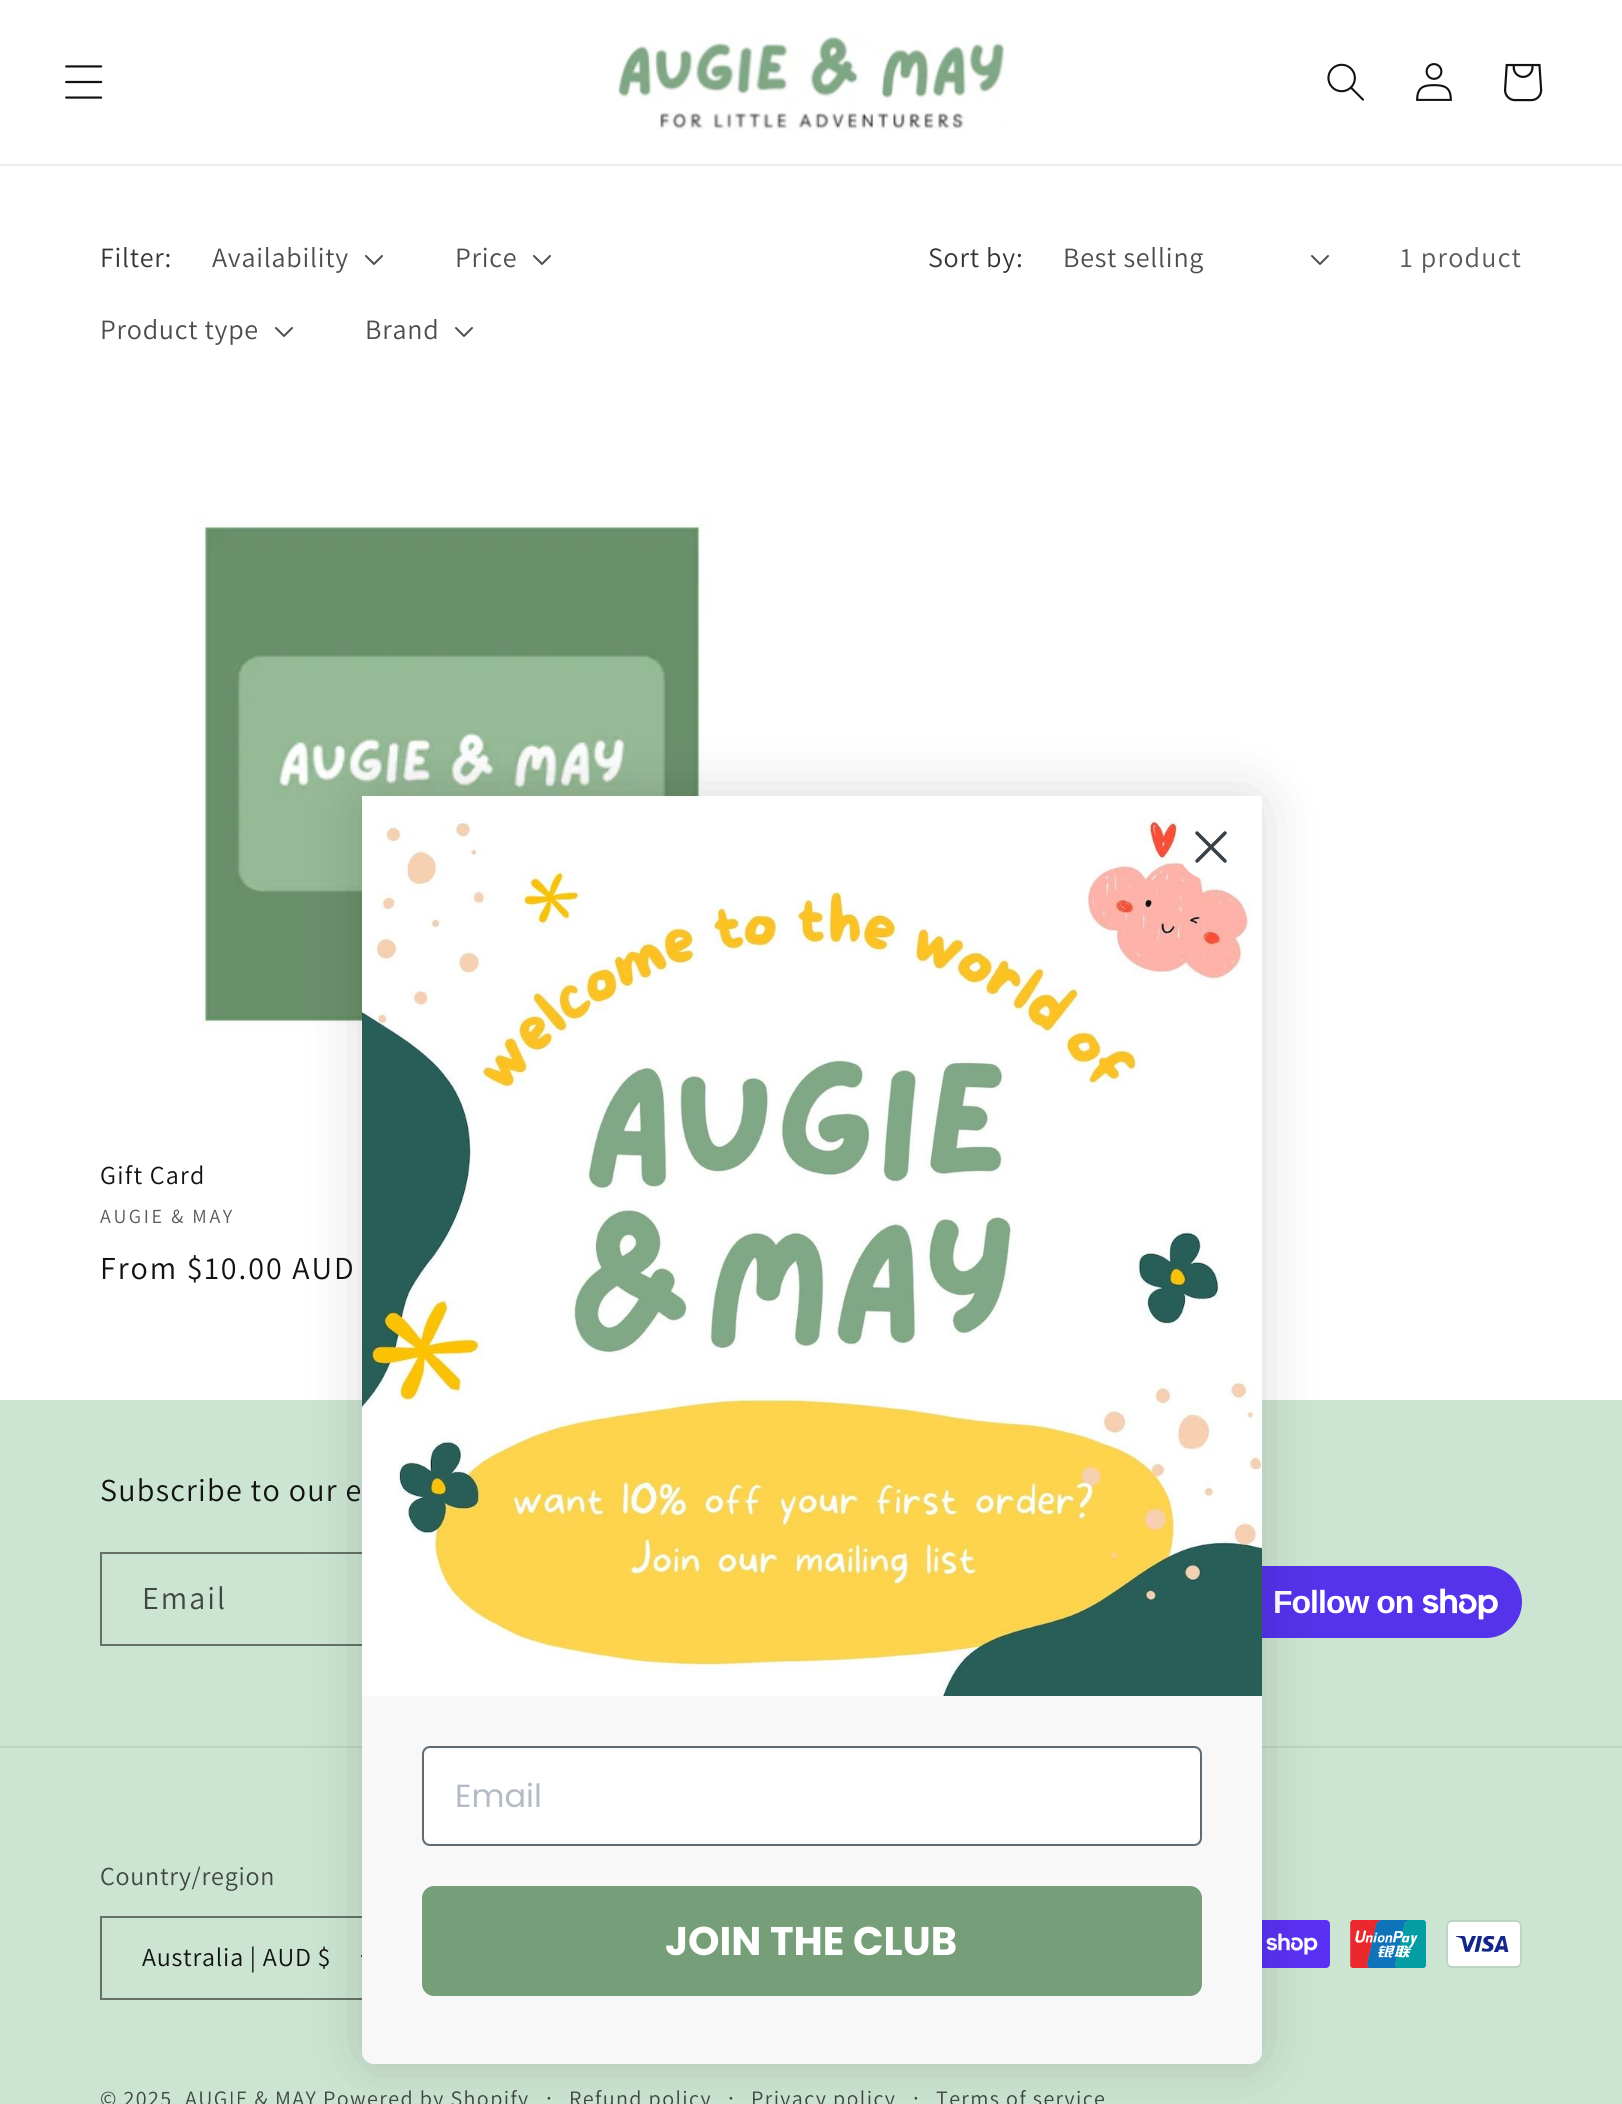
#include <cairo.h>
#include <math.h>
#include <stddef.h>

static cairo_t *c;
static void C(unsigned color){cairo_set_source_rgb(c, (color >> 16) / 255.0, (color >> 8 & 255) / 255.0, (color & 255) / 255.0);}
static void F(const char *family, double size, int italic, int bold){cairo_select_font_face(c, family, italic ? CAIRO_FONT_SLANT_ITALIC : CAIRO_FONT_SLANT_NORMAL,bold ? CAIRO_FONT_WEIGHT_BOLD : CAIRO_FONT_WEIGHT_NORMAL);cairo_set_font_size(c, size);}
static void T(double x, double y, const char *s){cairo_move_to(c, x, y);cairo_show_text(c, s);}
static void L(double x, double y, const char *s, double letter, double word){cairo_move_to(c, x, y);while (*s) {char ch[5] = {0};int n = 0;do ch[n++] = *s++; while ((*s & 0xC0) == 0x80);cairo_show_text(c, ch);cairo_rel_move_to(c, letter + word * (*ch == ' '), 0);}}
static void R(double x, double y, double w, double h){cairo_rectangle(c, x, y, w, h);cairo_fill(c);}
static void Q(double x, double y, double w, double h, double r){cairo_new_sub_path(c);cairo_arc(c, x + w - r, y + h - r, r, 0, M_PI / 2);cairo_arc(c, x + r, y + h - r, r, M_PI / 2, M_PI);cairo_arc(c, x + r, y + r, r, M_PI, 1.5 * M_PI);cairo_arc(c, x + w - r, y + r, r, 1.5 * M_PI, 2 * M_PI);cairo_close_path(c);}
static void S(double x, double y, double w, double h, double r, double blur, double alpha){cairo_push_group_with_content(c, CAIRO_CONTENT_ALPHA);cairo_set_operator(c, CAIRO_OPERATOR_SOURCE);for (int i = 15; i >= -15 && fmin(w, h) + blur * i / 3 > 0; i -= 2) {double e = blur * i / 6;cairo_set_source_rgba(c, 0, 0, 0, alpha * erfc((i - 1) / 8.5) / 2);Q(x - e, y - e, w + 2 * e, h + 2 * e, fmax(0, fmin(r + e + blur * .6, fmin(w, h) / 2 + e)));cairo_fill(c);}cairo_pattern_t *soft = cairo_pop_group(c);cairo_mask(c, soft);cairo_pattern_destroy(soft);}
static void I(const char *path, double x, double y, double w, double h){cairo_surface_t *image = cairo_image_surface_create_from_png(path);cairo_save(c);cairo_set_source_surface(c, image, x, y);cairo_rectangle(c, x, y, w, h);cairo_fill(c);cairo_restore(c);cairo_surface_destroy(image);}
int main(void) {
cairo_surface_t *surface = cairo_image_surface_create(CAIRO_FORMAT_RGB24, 1622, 2104);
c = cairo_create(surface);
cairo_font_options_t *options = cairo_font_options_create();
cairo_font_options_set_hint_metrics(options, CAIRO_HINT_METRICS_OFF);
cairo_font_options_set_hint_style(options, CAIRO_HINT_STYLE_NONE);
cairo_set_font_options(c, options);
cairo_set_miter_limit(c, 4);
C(0xffffff);
cairo_paint(c);
C(0xececec);
R(0,164,1622,2);
I("1.png",65,65,38,34);
I("2.png",618,36,388,94);
I("3.png",1327,63,37,38);
I("4.png",1416,63,36,38);
I("5.png",1504,63,39,39);
F("Assistant",28,0,0);
C(0x363636);
L(100,267,"Filter:",.75,0);
C(0x4d4d4d);
L(212,267,"Availability",.75,0);
I("6.png",365,255,18,10);
L(455,267,"Price",.75,0);
I("6.png",533,255,18,10);
L(100,339,"Product type",.75,0);
I("6.png",275,327,18,10);
L(365,339,"Brand",.75,0);
I("6.png",455,327,18,10);
C(0x363636);
L(928,267,"Sort by:",.75,0);
C(0x4d4d4d);
L(1063,267,"Best selling",.75,0);
I("6.png",1311,255,18,10);
C(0x595959);
L(1400,267,"1 product",1.25,0);
I("7.png",100,422,704,704);
F("Assistant",26,0,0);
C(0x121212);
L(100,1184,"Gift Card",1.25,0);
F("Assistant",20,0,0);
C(0x595959);
L(100,1223,"AUGIE & MAY",2.6,0);
F("Assistant",32,0,0);
C(0x121212);
L(100,1279,"From $10.00 AUD",2,0);
C(0xcce5d2);
R(0,1400,1622,704);
C(0x121212);
L(100,1501,"Subscribe to our e",1.25,0);
cairo_rectangle(c,101,1553,718,92);
C(0x667168);
cairo_stroke(c);
C(0x414742);
L(142,1609,"Email",2,0);
C(0x5433eb);
Q(1202,1566,320,72,36);
cairo_fill(c);
F("Liberation Sans",32,0,1);
C(0xffffff);
L(1273,1613,"Follow on",-1,0);
I("8.png",1423,1588,75,32);
C(0xbdd4c3);
R(0,1746,1622,2);
F("Assistant",26,0,0);
C(0x414742);
L(100,1885,"Country/region",.75,0);
I("9.png",361,1955,1,3);
cairo_rectangle(c,101,1917,310,82);
C(0x667168);
cairo_stroke(c);
C(0x121212);
L(142,1966,"Australia | AUD $",.75,0);
I("10.png",1262,1920,68,48);
I("11.png",1350,1920,76,48);
I("12.png",1446,1920,76,48);
F("Assistant",22,0,0);
C(0x414742);
L(100,2106,"© 2025",1.4,0);
L(185,2106,"AUGIE & MAY",1.4,0);
L(323,2106,"Powered by Shopify",1.4,0);
F("Assistant",24,0,0);
L(546,2106,"·",1.4,0);
F("Assistant",22,0,0);
L(569,2106,"Refund policy",1.4,0);
F("Assistant",24,0,0);
L(728,2106,"·",1.4,0);
F("Assistant",22,0,0);
L(751,2106,"Privacy policy",1.4,0);
F("Assistant",24,0,0);
L(913,2106,"·",1.4,0);
F("Assistant",22,0,0);
L(936,2106,"Terms of service",1.4,0);
C(0x000000);
S(362,796,900,1268,12,30,.15);
C(0xf8f8f8);
Q(362,796,900,1268,12);
cairo_fill(c);
I("13.png",362,796,900,900);
C(0xffffff);
cairo_arc(c,1211,847,33,0,2 * M_PI);
cairo_fill(c);
cairo_new_path(c);
cairo_move_to(c,1197,833);
cairo_line_to(c,1225,861);
cairo_move_to(c,1197,861);
cairo_line_to(c,1225,833);
cairo_close_path(c);
C(0x373f47);
cairo_set_line_width(c,3.5);
cairo_set_line_cap(c,CAIRO_LINE_CAP_ROUND);
cairo_set_line_join(c,CAIRO_LINE_JOIN_ROUND);
cairo_stroke(c);
C(0xffffff);
Q(423,1747,778,98,7);
cairo_fill_preserve(c);
C(0x606a72);
cairo_set_line_width(c,2);
cairo_set_line_cap(c,CAIRO_LINE_CAP_BUTT);
cairo_set_line_join(c,CAIRO_LINE_JOIN_MITER);
cairo_stroke(c);
F("Poppins",32,0,0);
C(0xb4bbc3);
T(455,1807,"Email");
C(0x759e79);
Q(422,1886,780,110,12);
cairo_fill(c);
F("Poppins",40,0,1);
C(0xffffff);
T(665,1955,"JOIN THE CLUB");
cairo_surface_write_to_png(surface, "o.png");
cairo_font_options_destroy(options);
cairo_destroy(c);
cairo_surface_destroy(surface);
return 0;
}
